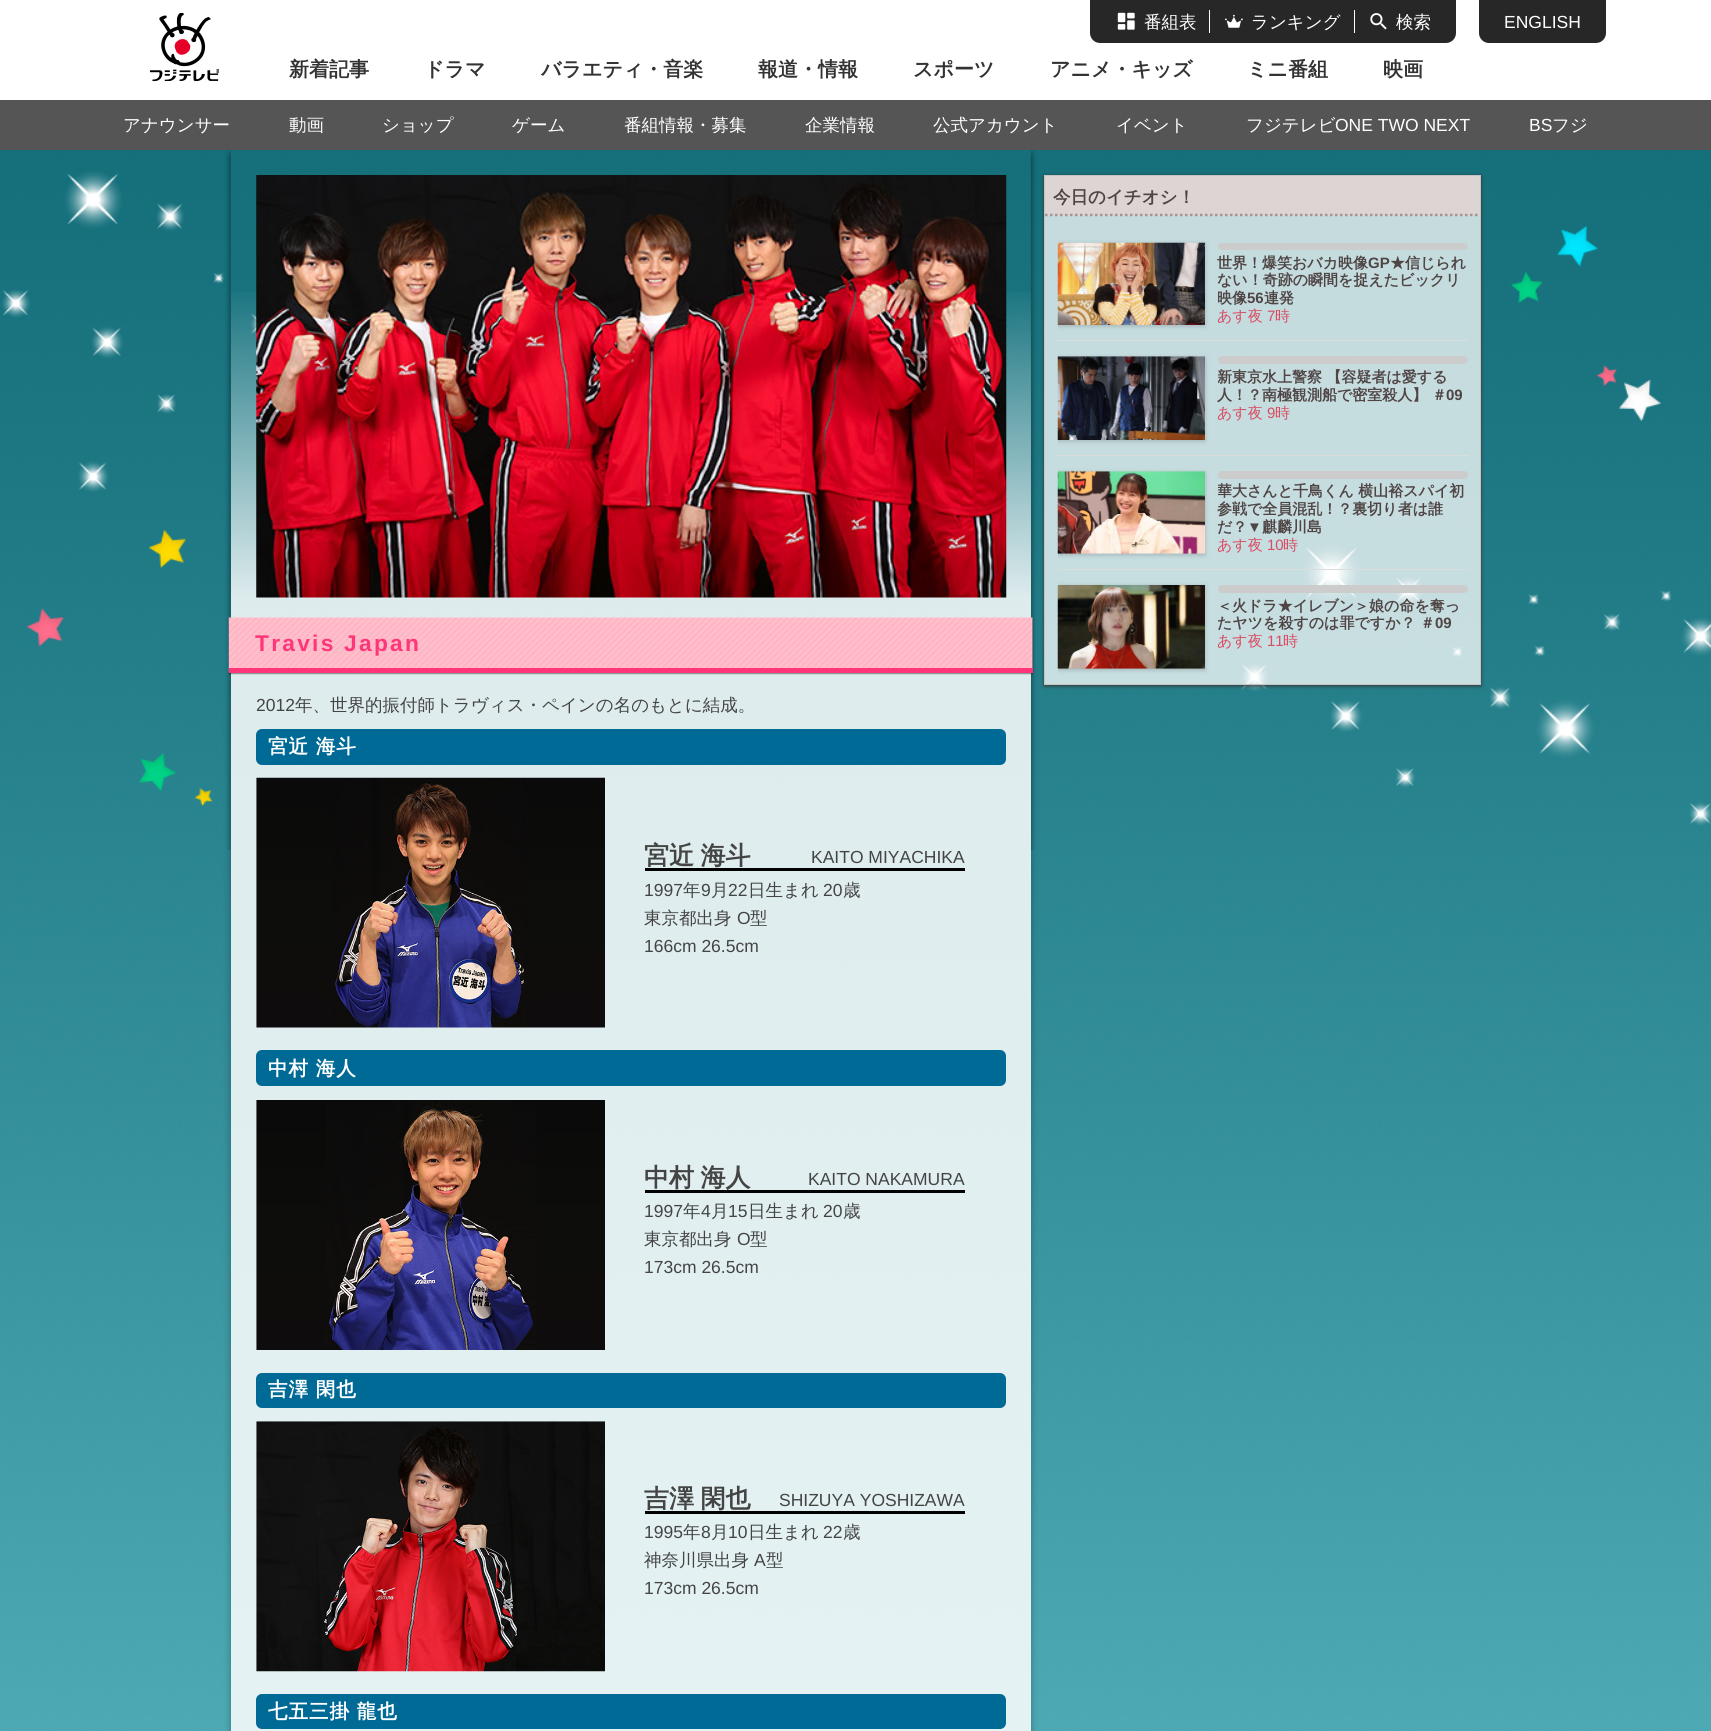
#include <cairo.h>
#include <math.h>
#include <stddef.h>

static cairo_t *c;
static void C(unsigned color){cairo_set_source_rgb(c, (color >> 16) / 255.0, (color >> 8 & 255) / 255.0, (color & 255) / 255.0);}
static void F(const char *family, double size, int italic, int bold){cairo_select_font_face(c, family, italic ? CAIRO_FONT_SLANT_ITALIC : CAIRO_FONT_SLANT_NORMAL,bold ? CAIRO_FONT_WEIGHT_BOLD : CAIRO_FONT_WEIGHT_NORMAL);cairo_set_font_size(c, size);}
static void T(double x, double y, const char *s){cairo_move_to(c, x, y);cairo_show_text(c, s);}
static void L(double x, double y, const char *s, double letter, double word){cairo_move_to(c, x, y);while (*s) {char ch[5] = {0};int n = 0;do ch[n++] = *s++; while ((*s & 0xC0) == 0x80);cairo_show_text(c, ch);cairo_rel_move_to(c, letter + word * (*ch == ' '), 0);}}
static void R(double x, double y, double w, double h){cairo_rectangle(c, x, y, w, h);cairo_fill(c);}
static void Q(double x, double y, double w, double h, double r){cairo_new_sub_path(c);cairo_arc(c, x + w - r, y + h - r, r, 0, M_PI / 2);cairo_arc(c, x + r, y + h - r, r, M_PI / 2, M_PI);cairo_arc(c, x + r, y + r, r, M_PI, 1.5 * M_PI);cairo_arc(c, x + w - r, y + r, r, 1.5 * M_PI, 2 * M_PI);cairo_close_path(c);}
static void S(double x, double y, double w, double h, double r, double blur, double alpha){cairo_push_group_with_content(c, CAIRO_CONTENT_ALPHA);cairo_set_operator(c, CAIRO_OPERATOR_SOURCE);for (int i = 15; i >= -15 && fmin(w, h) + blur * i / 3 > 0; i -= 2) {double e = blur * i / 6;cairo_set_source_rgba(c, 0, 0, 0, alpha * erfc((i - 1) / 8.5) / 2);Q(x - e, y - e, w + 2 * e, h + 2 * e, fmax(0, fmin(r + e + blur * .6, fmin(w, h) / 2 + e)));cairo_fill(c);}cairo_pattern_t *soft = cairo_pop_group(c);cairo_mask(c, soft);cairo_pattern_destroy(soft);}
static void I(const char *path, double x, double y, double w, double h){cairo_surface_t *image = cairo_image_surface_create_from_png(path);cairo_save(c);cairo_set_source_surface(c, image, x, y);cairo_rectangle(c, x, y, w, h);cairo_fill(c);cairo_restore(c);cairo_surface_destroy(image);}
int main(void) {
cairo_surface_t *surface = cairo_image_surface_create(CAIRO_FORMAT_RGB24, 1711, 1731);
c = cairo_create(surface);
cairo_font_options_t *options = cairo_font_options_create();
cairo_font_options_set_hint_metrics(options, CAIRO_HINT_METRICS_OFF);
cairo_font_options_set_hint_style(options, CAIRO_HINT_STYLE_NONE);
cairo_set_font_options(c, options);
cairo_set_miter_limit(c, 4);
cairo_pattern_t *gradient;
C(0xffffff);
cairo_paint(c);
C(0x272727);
cairo_new_path(c);
cairo_move_to(c,1090,0);
cairo_line_to(c,1456,0);
cairo_line_to(c,1456,33);
cairo_curve_to(c,1456,38.5,1451.5,43,1446,43);
cairo_line_to(c,1100,43);
cairo_curve_to(c,1094.5,43,1090,38.5,1090,33);
cairo_close_path(c);
cairo_fill(c);
I("1.png",1117,12,18,18);
F("WenQuanYi Zen Hei Medium",17.5,0,0);
C(0xffffff);
T(1144,28,"番組表");
R(1209,10,1,23);
I("2.png",1225,14,18,14);
T(1251,28,"ランキング");
R(1354,10,1,23);
I("3.png",1370,13,17,17);
T(1396,28,"検索");
C(0x272727);
cairo_new_path(c);
cairo_move_to(c,1479,0);
cairo_line_to(c,1606,0);
cairo_line_to(c,1606,33);
cairo_curve_to(c,1606,38.5,1601.5,43,1596,43);
cairo_line_to(c,1489,43);
cairo_curve_to(c,1483.5,43,1479,38.5,1479,33);
cairo_close_path(c);
cairo_fill(c);
F("Liberation Sans",17.5,0,0);
C(0xffffff);
T(1504,28,"ENGLISH");
I("4.png",150,13,69,68);
F("WenQuanYi Zen Hei",20,0,1);
C(0x333333);
T(289,76,"新着記事");
T(424,76,"ドラマ");
T(541,76,"バラエティ・音楽");
T(758,76,"報道・情報");
T(913,76,"スポーツ");
T(1050,76,"アニメ・キッズ");
T(1247,76,"ミニ番組");
T(1383,76,"映画");
I("5.png",0,150,1711,1581);
cairo_save(c);
cairo_set_fill_rule(c,CAIRO_FILL_RULE_EVEN_ODD);
cairo_new_path(c);
cairo_move_to(c,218,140);
cairo_line_to(c,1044,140);
cairo_line_to(c,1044,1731);
cairo_line_to(c,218,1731);
cairo_close_path(c);
cairo_move_to(c,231,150);
cairo_line_to(c,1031,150);
cairo_line_to(c,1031,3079);
cairo_line_to(c,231,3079);
cairo_close_path(c);
cairo_clip(c);
C(0x000000);
S(231,153,800,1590,0,4,.3);
cairo_restore(c);
C(0x555555);
R(0,100,1711,50);
F("WenQuanYi Zen Hei Medium",17.5,0,0);
C(0xffffff);
T(123,131,"アナウンサー");
T(289,131,"動画");
T(382,131,"ショップ");
T(512,131,"ゲーム");
T(624,131,"番組情報・募集");
T(805,131,"企業情報");
T(933,131,"公式アカウント");
T(1116,131,"イベント");
T(1246,131,"フジテレビ");
F("Liberation Sans",17.5,0,0);
T(1335,131,"ONE TWO NEXT");
T(1529,131,"BS");
F("WenQuanYi Zen Hei Medium",17.5,0,0);
T(1552,131,"フジ");
cairo_save(c);
cairo_set_fill_rule(c,CAIRO_FILL_RULE_EVEN_ODD);
cairo_new_path(c);
cairo_move_to(c,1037,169);
cairo_line_to(c,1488,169);
cairo_line_to(c,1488,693);
cairo_line_to(c,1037,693);
cairo_close_path(c);
cairo_move_to(c,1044,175);
cairo_line_to(c,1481,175);
cairo_line_to(c,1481,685);
cairo_line_to(c,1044,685);
cairo_close_path(c);
cairo_clip(c);
C(0x333333);
S(1044,176,437,510,0,2,1);
cairo_restore(c);
cairo_set_source_rgba(c,1,1,1,0.75);
R(1045,216,435,468);
cairo_rectangle(c,1044.5,175.5,436,509);
C(0xc9c2c2);
cairo_set_line_width(c,1);
cairo_stroke(c);
C(0xdcd5d4);
R(1045,176,435,40);
cairo_new_path(c);
cairo_move_to(c,1045,215);
cairo_line_to(c,1480,215);
C(0xa09699);
cairo_set_line_width(c,2.5);
cairo_set_dash(c,(double[]){2.5,2.5},2,0);
cairo_stroke(c);
F("WenQuanYi Zen Hei",17.5,0,1);
C(0x504545);
T(1053,203,"今日のイチオシ！");
C(0xdcdcdc);
R(1058,340,410,1);
cairo_save(c);
cairo_rectangle(c,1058,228,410,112);
cairo_clip(c);
C(0x000000);
S(1058,244,147,82,0,2.5,.2);
cairo_restore(c);
I("6.png",1057,242,148,83);
C(0xcccccc);
Q(1218,243,250,7,3.5);
cairo_fill(c);
F("WenQuanYi Zen Hei",15,0,1);
C(0x504545);
T(1217,268,"世界！爆笑おバカ映像");
F("Liberation Sans",15,0,1);
T(1368,268,"GP");
F("WenQuanYi Zen Hei",15,0,1);
T(1390,268,"★信じられ");
T(1217,285,"ない！奇跡の瞬間を捉えたビックリ");
cairo_save(c);
cairo_rectangle(c,1218,254,250,54);
cairo_clip(c);
T(1217,303,"映像");
cairo_restore(c);
F("Liberation Sans",15,0,1);
T(1247,303,"56");
F("WenQuanYi Zen Hei",15,0,1);
T(1264,303,"連発");
F("WenQuanYi Zen Hei Medium",15,0,0);
C(0xd94c63);
T(1217,321,"あす夜");
F("Liberation Sans",15,0,0);
T(1267,321,"7");
F("WenQuanYi Zen Hei Medium",15,0,0);
T(1275,321,"時");
C(0xdcdcdc);
R(1058,455,410,1);
cairo_save(c);
cairo_rectangle(c,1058,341,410,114);
cairo_clip(c);
C(0x000000);
S(1058,358,147,83,0,2.5,.2);
cairo_restore(c);
I("7.png",1057,356,148,84);
C(0xcccccc);
Q(1218,356,250,8,4);
cairo_fill(c);
cairo_save(c);
cairo_rectangle(c,1218,368,250,36);
cairo_clip(c);
F("WenQuanYi Zen Hei",15,0,1);
C(0x504545);
T(1217,382,"新東京水上警察 【容疑者は愛する");
cairo_restore(c);
F("WenQuanYi Zen Hei",15,0,1);
C(0x504545);
T(1217,400,"人！？南極観測船で密室殺人】 ＃");
F("Liberation Sans",15,0,1);
T(1446,400,"09");
F("WenQuanYi Zen Hei Medium",15,0,0);
C(0xd94c63);
T(1217,418,"あす夜");
F("Liberation Sans",15,0,0);
T(1267,418,"9");
F("WenQuanYi Zen Hei Medium",15,0,0);
T(1275,418,"時");
C(0xdcdcdc);
R(1058,569,410,1);
cairo_save(c);
cairo_rectangle(c,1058,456,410,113);
cairo_clip(c);
C(0x000000);
S(1058,473,147,82,0,2.5,.2);
cairo_restore(c);
I("8.png",1057,471,148,83);
C(0xcccccc);
Q(1218,471,250,8,4);
cairo_fill(c);
cairo_save(c);
cairo_rectangle(c,1218,483,250,53);
cairo_clip(c);
F("WenQuanYi Zen Hei",15,0,1);
C(0x504545);
T(1217,496,"華大さんと千鳥くん 横山裕スパイ初");
cairo_restore(c);
F("WenQuanYi Zen Hei",15,0,1);
C(0x504545);
T(1217,514,"参戦で全員混乱！？裏切り者は誰");
T(1217,532,"だ？");
F("Liberation Sans",15,0,1);
T(1247,532,"▼");
F("WenQuanYi Zen Hei",15,0,1);
T(1262,532,"麒麟川島");
F("WenQuanYi Zen Hei Medium",15,0,0);
C(0xd94c63);
T(1217,550,"あす夜");
F("Liberation Sans",15,0,0);
T(1267,550,"10");
F("WenQuanYi Zen Hei Medium",15,0,0);
T(1283,550,"時");
cairo_save(c);
cairo_rectangle(c,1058,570,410,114);
cairo_clip(c);
C(0x000000);
S(1058,586,147,84,0,2.5,.2);
cairo_restore(c);
I("9.png",1057,585,148,84);
C(0xcccccc);
Q(1218,585,250,8,4);
cairo_fill(c);
F("WenQuanYi Zen Hei",15,0,1);
C(0x504545);
T(1217,611,"＜火ドラ★イレブン＞娘の命を奪っ");
T(1217,628,"たヤツを殺すのは罪ですか？ ＃");
F("Liberation Sans",15,0,1);
T(1435,628,"09");
F("WenQuanYi Zen Hei Medium",15,0,0);
C(0xd94c63);
T(1217,646,"あす夜");
F("Liberation Sans",15,0,0);
T(1267,646,"11");
F("WenQuanYi Zen Hei Medium",15,0,0);
T(1283,646,"時");
gradient = cairo_pattern_create_linear(631,150,631,598);
cairo_pattern_add_color_stop_rgba(gradient,.3,1,1,1,0);
cairo_pattern_add_color_stop_rgba(gradient,1,1,1,1,.85);
cairo_set_source(c,gradient);
cairo_pattern_destroy(gradient);
R(231,292,800,306);
I("10.png",256,175,751,423);
cairo_set_source_rgba(c,1,1,1,0.85);
R(231,598,800,1133);
C(0x000000);
S(229,619,804,55,0,.5,.4);
I("11.png",228,617,805,56);
C(0xfe3679);
R(229,668,804,5);
F("Liberation Sans",22.75,0,1);
L(255,651,"Travis Japan",2.25,0);
F("Liberation Sans",17.5,0,0);
C(0x444444);
T(256,711,"2012");
F("WenQuanYi Zen Hei Medium",17.5,0,0);
T(295,711,"年、世界的振付師トラヴィス・ペインの名のもとに結成。");
C(0x006a96);
Q(256,729,750,36,6);
cairo_fill(c);
F("WenQuanYi Zen Hei",19.5,0,1);
C(0xffffff);
L(268,753,"宮近 海斗",1,0);
I("12.png",256,777,349,251);
C(0x000000);
R(645,868,320,3);
F("WenQuanYi Zen Hei",25,0,1);
C(0x444444);
L(644,864,"宮近 海斗",0,-1);
F("Liberation Sans",17.5,0,0);
T(811,863,"KAITO MIYACHIKA");
T(644,896,"1997");
F("WenQuanYi Zen Hei Medium",17.5,0,0);
T(683,896,"年");
F("Liberation Sans",17.5,0,0);
T(701,896,"9");
F("WenQuanYi Zen Hei Medium",17.5,0,0);
T(711,896,"月");
F("Liberation Sans",17.5,0,0);
T(728,896,"22");
F("WenQuanYi Zen Hei Medium",17.5,0,0);
T(748,896,"日生まれ");
F("Liberation Sans",17.5,0,0);
T(823,896,"20");
F("WenQuanYi Zen Hei Medium",17.5,0,0);
T(843,896,"歳");
T(644,924,"東京都出身");
F("Liberation Sans",17.5,0,0);
T(737,924,"O");
F("WenQuanYi Zen Hei Medium",17.5,0,0);
T(750,924,"型");
F("Liberation Sans",17.5,0,0);
T(644,952,"166cm 26.5cm");
C(0x006a96);
Q(256,1050,750,36,6);
cairo_fill(c);
F("WenQuanYi Zen Hei",19.5,0,1);
C(0xffffff);
L(268,1075,"中村 海人",1,0);
I("13.png",256,1100,349,250);
C(0x000000);
R(645,1190,320,3);
F("WenQuanYi Zen Hei",25,0,1);
C(0x444444);
L(644,1186,"中村 海人",0,-1);
F("Liberation Sans",17.5,0,0);
T(808,1185,"KAITO NAKAMURA");
T(644,1217,"1997");
F("WenQuanYi Zen Hei Medium",17.5,0,0);
T(683,1217,"年");
F("Liberation Sans",17.5,0,0);
T(701,1217,"4");
F("WenQuanYi Zen Hei Medium",17.5,0,0);
T(711,1217,"月");
F("Liberation Sans",17.5,0,0);
T(728,1217,"15");
F("WenQuanYi Zen Hei Medium",17.5,0,0);
T(748,1217,"日生まれ");
F("Liberation Sans",17.5,0,0);
T(823,1217,"20");
F("WenQuanYi Zen Hei Medium",17.5,0,0);
T(843,1217,"歳");
T(644,1245,"東京都出身");
F("Liberation Sans",17.5,0,0);
T(737,1245,"O");
F("WenQuanYi Zen Hei Medium",17.5,0,0);
T(750,1245,"型");
F("Liberation Sans",17.5,0,0);
T(644,1273,"173cm 26.5cm");
C(0x006a96);
Q(256,1373,750,35,6);
cairo_fill(c);
F("WenQuanYi Zen Hei",19.5,0,1);
C(0xffffff);
L(268,1396,"吉澤 閑也",1,0);
I("14.png",256,1421,349,251);
C(0x000000);
R(645,1511,320,3);
F("WenQuanYi Zen Hei",25,0,1);
C(0x444444);
L(644,1507,"吉澤 閑也",0,-1);
F("Liberation Sans",17.5,0,0);
T(779,1506,"SHIZUYA YOSHIZAWA");
T(644,1538,"1995");
F("WenQuanYi Zen Hei Medium",17.5,0,0);
T(683,1538,"年");
F("Liberation Sans",17.5,0,0);
T(701,1538,"8");
F("WenQuanYi Zen Hei Medium",17.5,0,0);
T(711,1538,"月");
F("Liberation Sans",17.5,0,0);
T(728,1538,"10");
F("WenQuanYi Zen Hei Medium",17.5,0,0);
T(748,1538,"日生まれ");
F("Liberation Sans",17.5,0,0);
T(823,1538,"22");
F("WenQuanYi Zen Hei Medium",17.5,0,0);
T(843,1538,"歳");
T(644,1566,"神奈川県出身");
F("Liberation Sans",17.5,0,0);
T(754,1566,"A");
F("WenQuanYi Zen Hei Medium",17.5,0,0);
T(766,1566,"型");
F("Liberation Sans",17.5,0,0);
T(644,1594,"173cm 26.5cm");
C(0x006a96);
Q(256,1694,750,35,6);
cairo_fill(c);
F("WenQuanYi Zen Hei",19.5,0,1);
C(0xffffff);
L(268,1718,"七五三掛 龍也",1,0);
cairo_surface_write_to_png(surface, "o.png");
cairo_font_options_destroy(options);
cairo_destroy(c);
cairo_surface_destroy(surface);
return 0;
}
